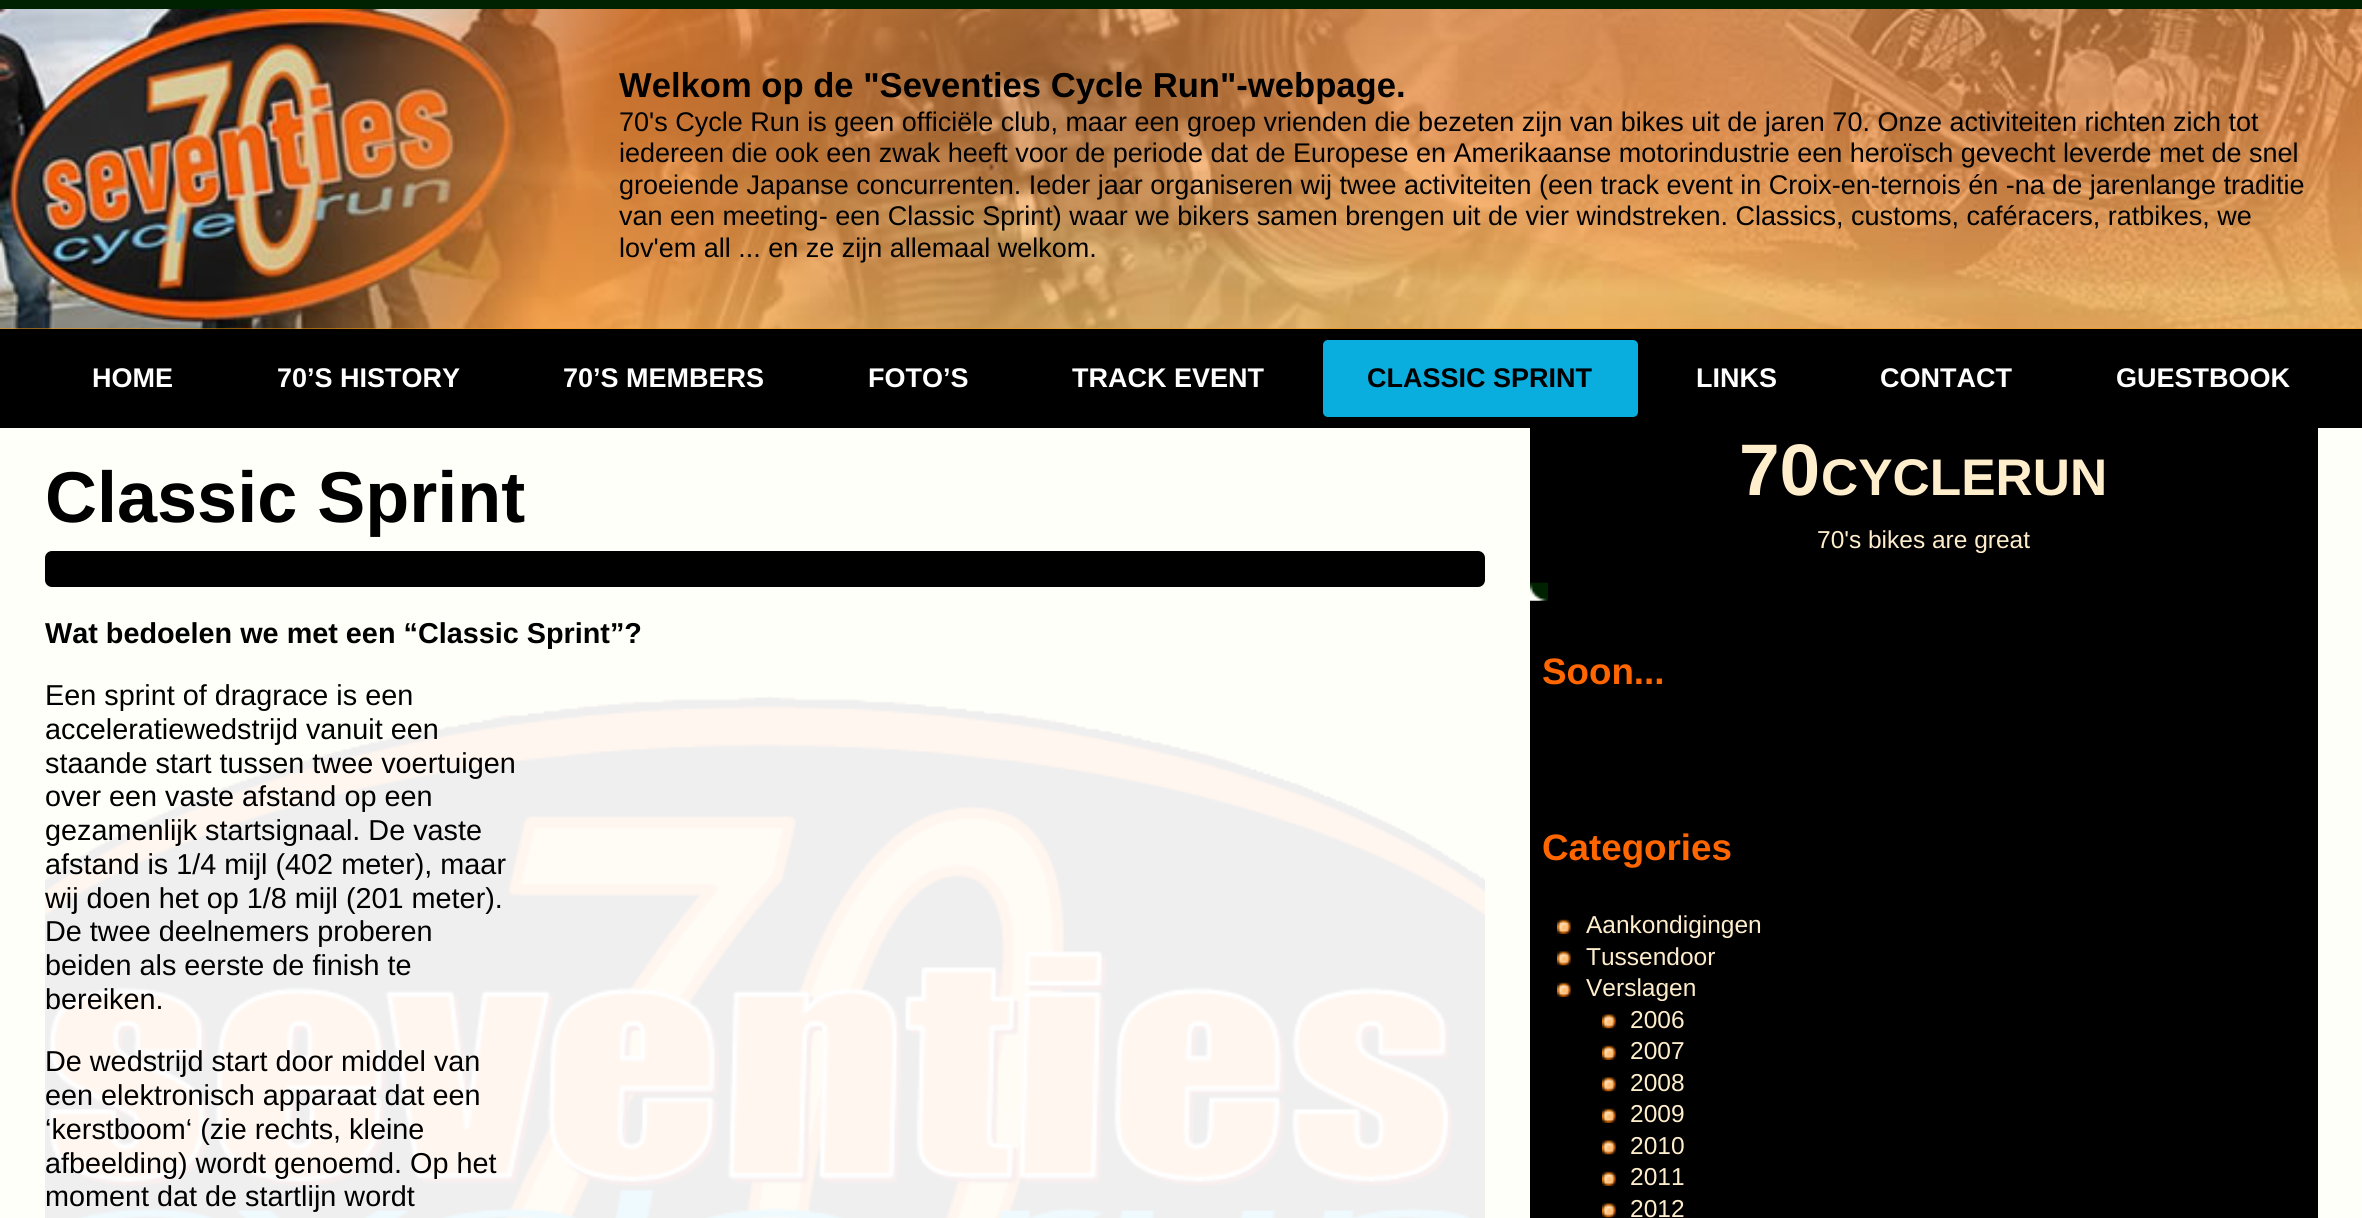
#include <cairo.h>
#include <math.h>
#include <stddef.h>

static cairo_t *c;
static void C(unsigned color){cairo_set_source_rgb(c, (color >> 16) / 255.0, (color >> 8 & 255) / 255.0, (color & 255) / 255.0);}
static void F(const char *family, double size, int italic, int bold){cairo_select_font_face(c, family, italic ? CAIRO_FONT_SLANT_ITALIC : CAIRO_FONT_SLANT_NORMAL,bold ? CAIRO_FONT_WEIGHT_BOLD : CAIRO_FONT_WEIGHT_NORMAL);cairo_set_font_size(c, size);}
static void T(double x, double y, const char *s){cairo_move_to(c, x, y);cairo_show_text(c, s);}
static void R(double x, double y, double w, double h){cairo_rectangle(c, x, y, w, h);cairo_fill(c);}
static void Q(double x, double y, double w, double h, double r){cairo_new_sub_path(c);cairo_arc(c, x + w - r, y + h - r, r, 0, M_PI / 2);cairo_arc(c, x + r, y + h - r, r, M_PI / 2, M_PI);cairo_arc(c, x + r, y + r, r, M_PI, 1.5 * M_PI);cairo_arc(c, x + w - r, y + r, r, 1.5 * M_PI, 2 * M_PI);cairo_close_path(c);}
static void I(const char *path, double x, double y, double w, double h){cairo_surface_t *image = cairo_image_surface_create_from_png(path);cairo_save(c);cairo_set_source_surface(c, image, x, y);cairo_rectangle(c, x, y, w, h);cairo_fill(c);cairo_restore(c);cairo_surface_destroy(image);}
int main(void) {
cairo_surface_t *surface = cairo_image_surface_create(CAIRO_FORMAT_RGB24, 2362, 1218);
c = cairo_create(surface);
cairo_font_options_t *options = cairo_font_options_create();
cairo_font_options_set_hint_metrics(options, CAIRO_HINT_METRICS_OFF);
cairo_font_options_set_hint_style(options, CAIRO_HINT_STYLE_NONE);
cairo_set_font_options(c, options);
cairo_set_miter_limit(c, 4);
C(0xfffffa);
cairo_paint(c);
C(0xff9900);
R(0,328,2362,1);
I("1.png",0,9,2362,320);
C(0x002200);
R(0,0,2362,9);
F("Liberation Sans",34.6,0,1);
C(0x000000);
T(619,97,"Welkom op de \"Seventies Cycle Run\"-webpage.");
F("Liberation Sans",27,0,0);
T(619,131,"70's Cycle Run is geen officiële club, maar een groep vrienden die bezeten zijn van bikes uit de jaren 70. Onze activiteiten richten zich tot");
T(619,162,"iedereen die ook een zwak heeft voor de periode dat de Europese en Amerikaanse motorindustrie een heroïsch gevecht leverde met de snel");
T(619,194,"groeiende Japanse concurrenten. Ieder jaar organiseren wij twee activiteiten (een track event in Croix-en-ternois én -na de jarenlange traditie");
T(619,225,"van een meeting- een Classic Sprint) waar we bikers samen brengen uit de vier windstreken. Classics, customs, caféracers, ratbikes, we");
T(619,257,"lov'em all ... en ze zijn allemaal welkom.");
R(0,329,2362,99);
F("Liberation Sans",27,0,1);
C(0xffffff);
T(92,387,"HOME");
T(277,387,"70’S HISTORY");
T(563,387,"70’S MEMBERS");
T(868,387,"FOTO’S");
T(1072,387,"TRACK EVENT");
C(0x09adde);
Q(1322,339,317,79,6);
cairo_fill_preserve(c);
C(0x000000);
cairo_stroke(c);
T(1367,387,"CLASSIC SPRINT");
C(0xffffff);
T(1696,387,"LINKS");
T(1880,387,"CONTACT");
T(2116,387,"GUESTBOOK");
I("2.png",45,695,1440,523);
F("Liberation Sans",72,0,1);
C(0x000000);
T(45,522,"Classic Sprint");
Q(46,552,1438,34,6);
cairo_fill_preserve(c);
cairo_stroke(c);
F("Liberation Sans",28.8,0,1);
T(45,643,"Wat bedoelen we met een “Classic Sprint”?");
F("Liberation Sans",28.8,0,0);
T(45,705,"Een sprint of dragrace is een");
T(45,739,"acceleratiewedstrijd vanuit een");
T(45,773,"staande start tussen twee voertuigen");
T(45,806,"over een vaste afstand op een");
T(45,840,"gezamenlijk startsignaal. De vaste");
T(45,874,"afstand is 1/4 mijl (402 meter), maar");
T(45,908,"wij doen het op 1/8 mijl (201 meter).");
T(45,941,"De twee deelnemers proberen");
T(45,975,"beiden als eerste de finish te");
T(45,1009,"bereiken.");
T(45,1071,"De wedstrijd start door middel van");
T(45,1105,"een elektronisch apparaat dat een");
T(45,1139,"‘kerstboom‘ (zie rechts, kleine");
T(45,1173,"afbeelding) wordt genoemd. Op het");
T(45,1206,"moment dat de startlijn wordt");
R(1530,428,788,790);
I("3.png",1530,582,18,19);
F("Liberation Sans",73,0,1);
C(0xffeecc);
T(1739,495,"70");
F("Liberation Sans",51.5,0,1);
T(1821,495,"CYCLERUN");
F("Liberation Sans",24.5,0,0);
T(1817,548,"70's bikes are great");
F("Liberation Sans",36.75,0,1);
C(0xff6600);
T(1542,684,"Soon...");
T(1542,860,"Categories");
I("4.png",1557,919,14,15);
F("Liberation Sans",24.5,0,0);
C(0xffeecc);
T(1586,933,"Aankondigingen");
I("5.png",1557,951,14,15);
T(1586,965,"Tussendoor");
I("4.png",1557,982,14,15);
T(1586,996,"Verslagen");
I("6.png",1602,1014,14,15);
T(1630,1028,"2006");
I("7.png",1602,1045,14,15);
T(1630,1059,"2007");
I("6.png",1602,1077,14,15);
T(1630,1091,"2008");
I("7.png",1602,1108,14,15);
T(1630,1122,"2009");
I("6.png",1602,1140,14,15);
T(1630,1154,"2010");
I("8.png",1602,1171,14,15);
T(1630,1185,"2011");
I("6.png",1602,1203,14,15);
T(1630,1217,"2012");
cairo_surface_write_to_png(surface, "o.png");
cairo_font_options_destroy(options);
cairo_destroy(c);
cairo_surface_destroy(surface);
return 0;
}
